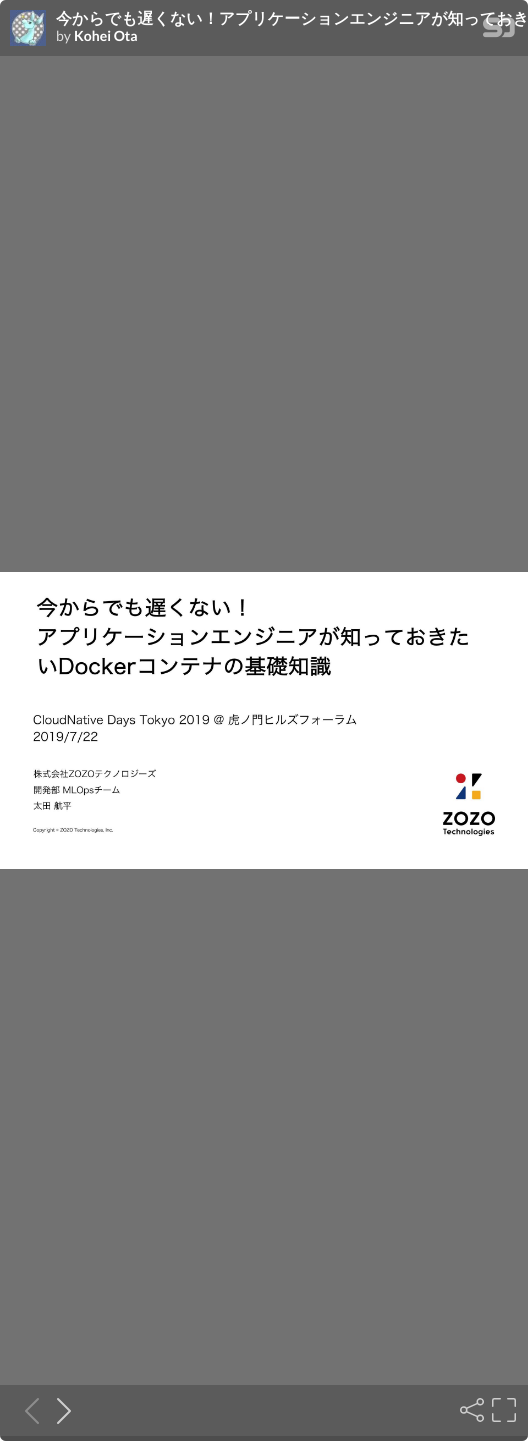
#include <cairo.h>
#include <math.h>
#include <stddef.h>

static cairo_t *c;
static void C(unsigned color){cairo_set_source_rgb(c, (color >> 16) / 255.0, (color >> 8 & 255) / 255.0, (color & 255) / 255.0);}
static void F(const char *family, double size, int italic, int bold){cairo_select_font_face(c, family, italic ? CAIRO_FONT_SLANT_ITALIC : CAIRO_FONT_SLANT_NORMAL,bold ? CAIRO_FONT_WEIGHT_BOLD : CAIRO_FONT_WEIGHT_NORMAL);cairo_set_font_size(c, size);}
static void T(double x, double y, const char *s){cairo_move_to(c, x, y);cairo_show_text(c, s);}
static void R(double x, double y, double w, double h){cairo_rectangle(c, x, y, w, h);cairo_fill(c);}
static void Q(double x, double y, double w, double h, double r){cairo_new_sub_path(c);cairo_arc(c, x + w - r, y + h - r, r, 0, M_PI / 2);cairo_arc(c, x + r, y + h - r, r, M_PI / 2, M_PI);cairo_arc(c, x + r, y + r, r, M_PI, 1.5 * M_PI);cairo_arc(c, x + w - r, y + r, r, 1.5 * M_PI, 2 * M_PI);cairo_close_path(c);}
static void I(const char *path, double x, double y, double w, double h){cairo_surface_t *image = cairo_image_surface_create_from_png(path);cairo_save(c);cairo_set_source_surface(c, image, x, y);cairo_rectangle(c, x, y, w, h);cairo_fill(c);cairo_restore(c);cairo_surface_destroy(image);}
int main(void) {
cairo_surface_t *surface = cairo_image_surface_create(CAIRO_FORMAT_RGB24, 528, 1441);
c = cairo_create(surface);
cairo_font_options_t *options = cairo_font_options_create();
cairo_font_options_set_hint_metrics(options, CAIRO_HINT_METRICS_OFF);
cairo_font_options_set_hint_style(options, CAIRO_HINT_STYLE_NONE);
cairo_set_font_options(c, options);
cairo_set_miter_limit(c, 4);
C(0xffffff);
cairo_paint(c);
C(0x727272);
Q(0,0,528,1441,6);
cairo_fill(c);
I("1.png",0,572,528,297);
cairo_set_source_rgba(c,0,0,0,0.2);
cairo_new_path(c);
cairo_move_to(c,6,0);
cairo_line_to(c,522,0);
cairo_curve_to(c,525.5,0,528,2.5,528,6);
cairo_line_to(c,528,56);
cairo_line_to(c,0,56);
cairo_line_to(c,0,6);
cairo_curve_to(c,0,2.5,2.5,0,6,0);
cairo_close_path(c);
cairo_fill(c);
I("2.png",10,10,36,36);
F("WenQuanYi Zen Hei",16,0,1);
C(0xffffff);
T(56,24,"今からでも遅くない！アプリケーションエンジニアが知っておき");
F("Lato",14,0,0);
C(0xdedede);
T(56,41,"by");
F("Lato",14,0,1);
C(0xffffff);
T(74,41,"Kohei Ota");
I("3.png",483,17,32,21);
cairo_set_source_rgba(c,0,0,0,0.2);
cairo_new_path(c);
cairo_move_to(c,0,1385);
cairo_line_to(c,528,1385);
cairo_line_to(c,528,1435);
cairo_curve_to(c,528,1438.5,525.5,1441,522,1441);
cairo_line_to(c,6,1441);
cairo_curve_to(c,2.5,1441,0,1438.5,0,1435);
cairo_close_path(c);
cairo_fill(c);
I("4.png",25,1398,14,26);
I("5.png",57,1398,14,26);
I("6.png",460,1398,24,24);
I("7.png",492,1398,24,24);
cairo_save(c);
Q(0,0,528,1441,6);
cairo_clip(c);
cairo_set_source_rgba(c,0,0,0,0.15);
R(0,1436,528,5);
cairo_restore(c);
cairo_surface_write_to_png(surface, "o.png");
cairo_font_options_destroy(options);
cairo_destroy(c);
cairo_surface_destroy(surface);
return 0;
}
